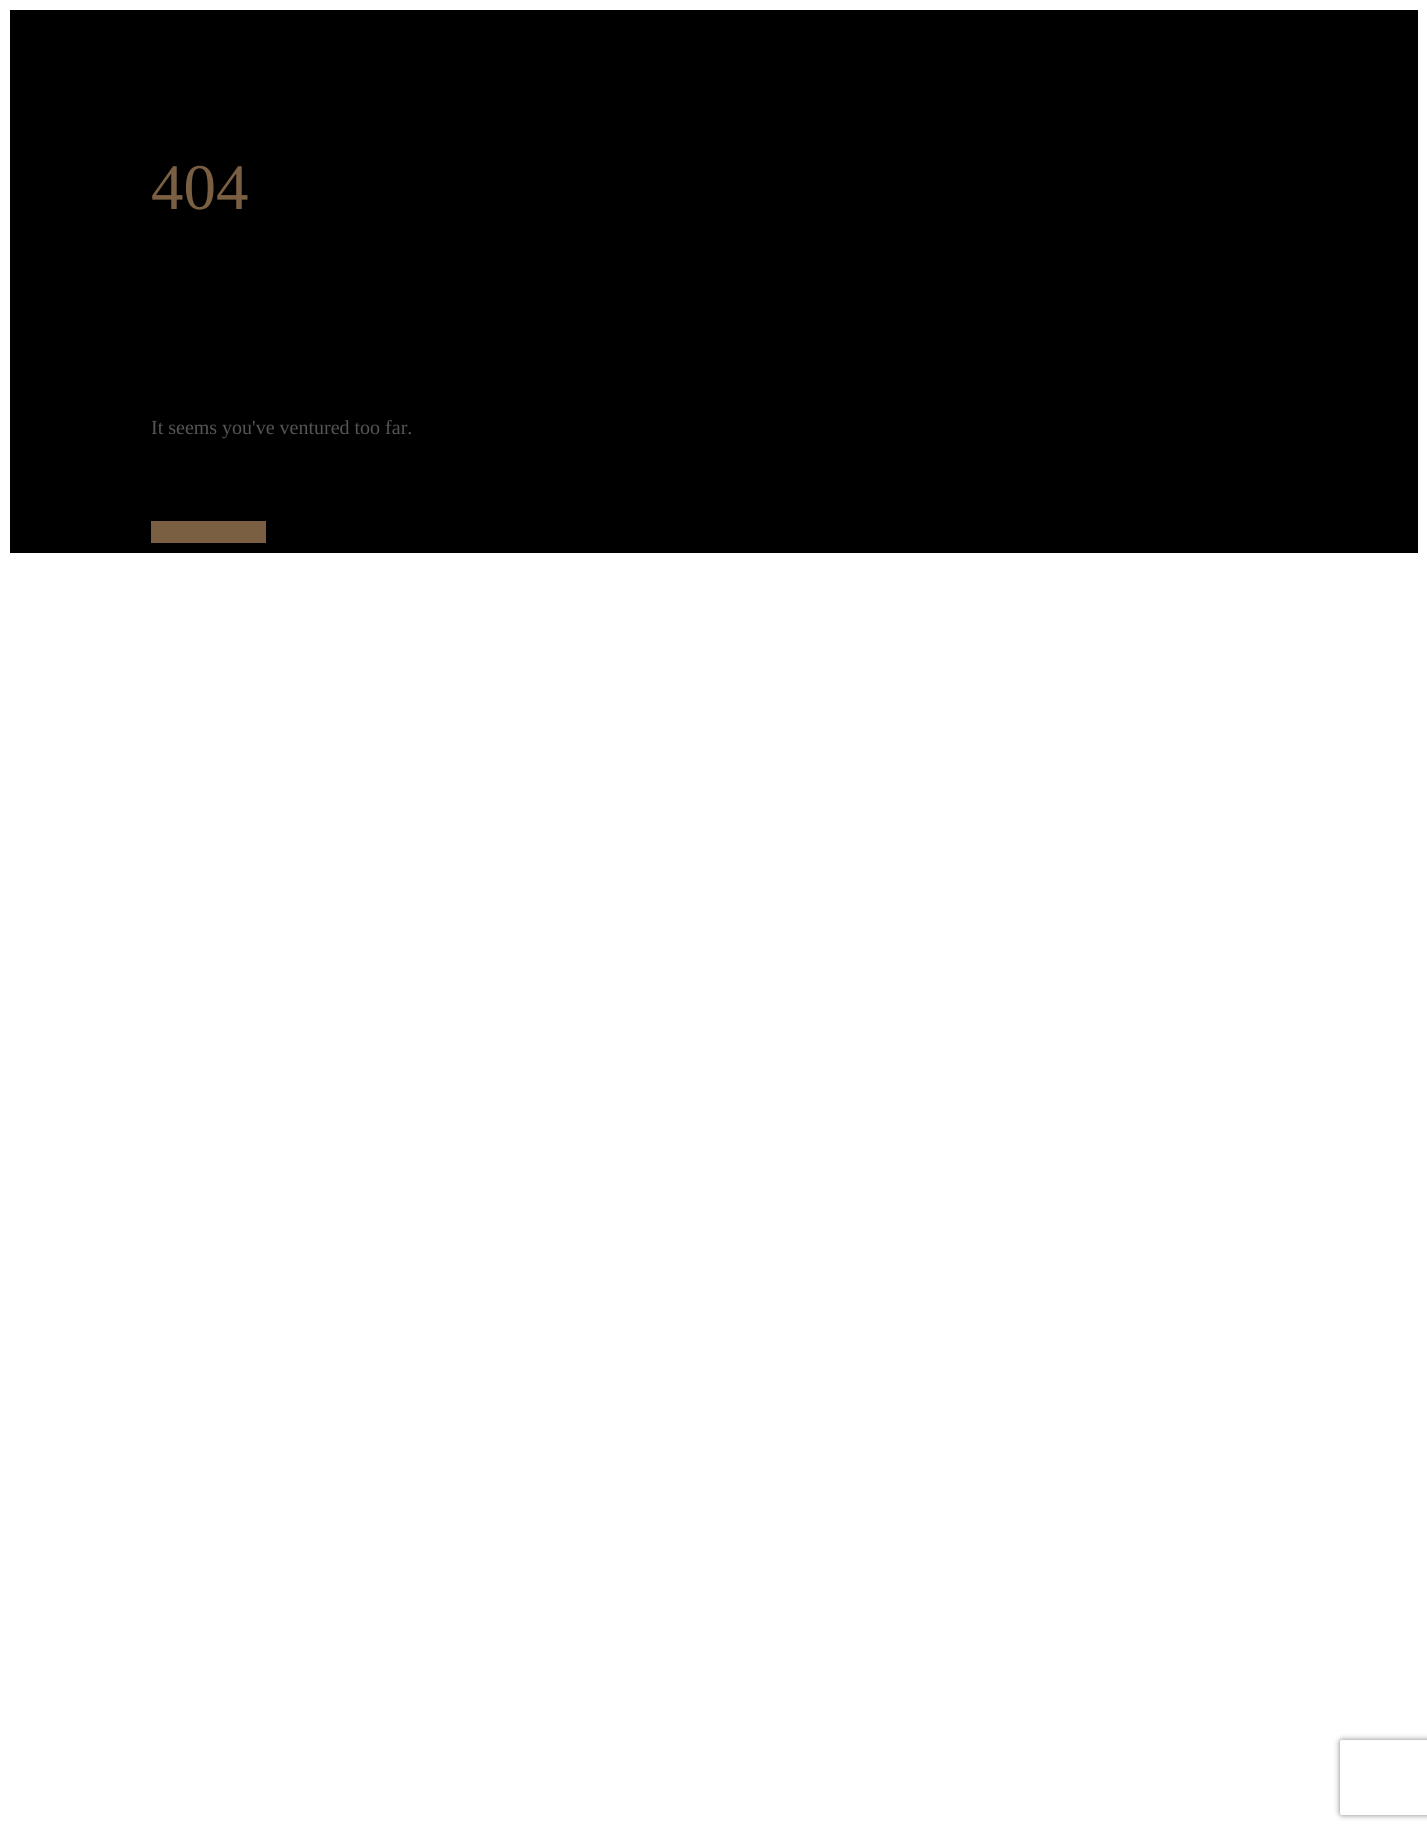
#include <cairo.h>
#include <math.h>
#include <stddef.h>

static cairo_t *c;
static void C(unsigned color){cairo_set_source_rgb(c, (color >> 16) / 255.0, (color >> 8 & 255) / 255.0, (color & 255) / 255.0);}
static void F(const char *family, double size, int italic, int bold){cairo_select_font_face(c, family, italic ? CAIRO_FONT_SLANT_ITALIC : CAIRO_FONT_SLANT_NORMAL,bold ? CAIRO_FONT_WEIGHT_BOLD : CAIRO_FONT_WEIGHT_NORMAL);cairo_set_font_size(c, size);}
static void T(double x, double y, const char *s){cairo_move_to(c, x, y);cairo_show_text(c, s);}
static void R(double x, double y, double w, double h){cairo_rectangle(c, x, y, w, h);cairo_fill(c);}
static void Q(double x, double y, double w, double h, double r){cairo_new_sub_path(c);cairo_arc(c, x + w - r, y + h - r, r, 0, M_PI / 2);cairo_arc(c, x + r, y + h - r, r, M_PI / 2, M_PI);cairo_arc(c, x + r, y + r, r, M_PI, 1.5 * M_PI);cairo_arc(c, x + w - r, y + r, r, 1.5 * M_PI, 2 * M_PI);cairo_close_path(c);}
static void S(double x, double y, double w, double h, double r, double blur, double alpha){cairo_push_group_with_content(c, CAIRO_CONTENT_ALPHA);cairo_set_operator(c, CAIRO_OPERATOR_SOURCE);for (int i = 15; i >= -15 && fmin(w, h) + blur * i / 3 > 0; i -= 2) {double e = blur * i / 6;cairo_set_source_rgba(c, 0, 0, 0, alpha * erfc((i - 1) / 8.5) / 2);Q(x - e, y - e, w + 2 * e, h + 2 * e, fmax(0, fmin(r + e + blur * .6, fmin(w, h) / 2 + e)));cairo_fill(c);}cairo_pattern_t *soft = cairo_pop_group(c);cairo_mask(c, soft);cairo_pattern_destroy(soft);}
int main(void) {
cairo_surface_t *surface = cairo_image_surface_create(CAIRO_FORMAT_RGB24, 1427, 1832);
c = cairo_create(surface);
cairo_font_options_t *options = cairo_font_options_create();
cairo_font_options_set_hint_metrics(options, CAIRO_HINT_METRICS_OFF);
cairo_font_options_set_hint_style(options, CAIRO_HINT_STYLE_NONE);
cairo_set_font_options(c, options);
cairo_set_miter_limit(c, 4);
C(0xffffff);
cairo_paint(c);
C(0x000000);
R(10,10,1408,543);
F("Liberation Serif",65,0,0);
C(0x7b5f43);
T(151,209,"404");
F("Liberation Serif",20,0,0);
C(0x555555);
T(151,434,"It seems you've ventured too far.");
C(0x7b5f43);
R(151,521,115,22);
cairo_save(c);
cairo_set_fill_rule(c,CAIRO_FILL_RULE_EVEN_ODD);
cairo_new_path(c);
cairo_move_to(c,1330,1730);
cairo_line_to(c,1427,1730);
cairo_line_to(c,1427,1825);
cairo_line_to(c,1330,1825);
cairo_close_path(c);
cairo_move_to(c,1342.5,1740);
cairo_line_to(c,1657.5,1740);
cairo_curve_to(c,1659,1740,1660,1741,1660,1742.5);
cairo_line_to(c,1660,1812.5);
cairo_curve_to(c,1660,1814,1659,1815,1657.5,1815);
cairo_line_to(c,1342.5,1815);
cairo_curve_to(c,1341,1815,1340,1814,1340,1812.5);
cairo_line_to(c,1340,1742.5);
cairo_curve_to(c,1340,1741,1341,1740,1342.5,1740);
cairo_close_path(c);
cairo_clip(c);
C(0x808080);
S(1340,1740,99,75,2.5,3,1);
cairo_restore(c);
cairo_surface_write_to_png(surface, "o.png");
cairo_font_options_destroy(options);
cairo_destroy(c);
cairo_surface_destroy(surface);
return 0;
}
